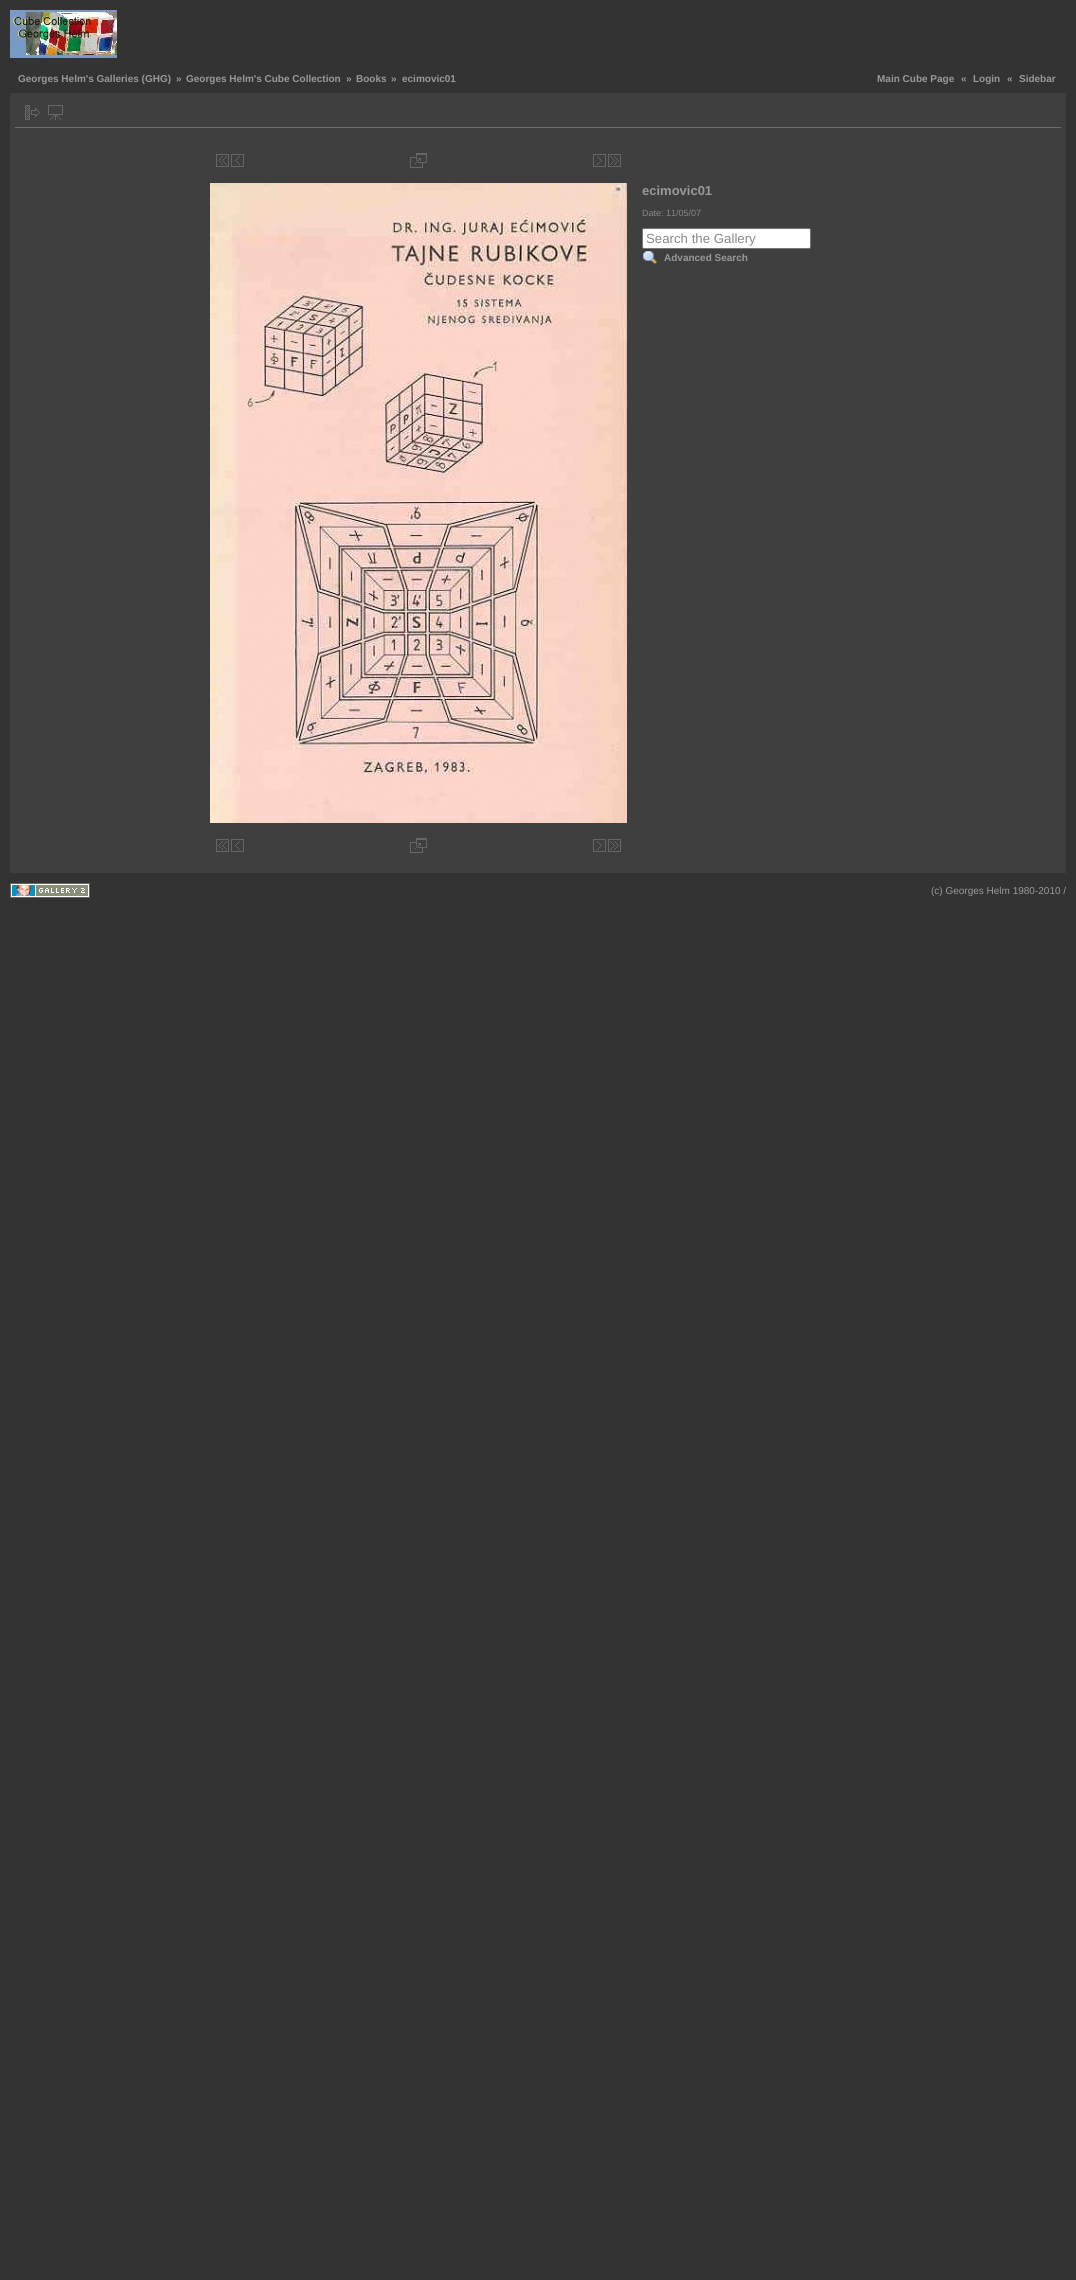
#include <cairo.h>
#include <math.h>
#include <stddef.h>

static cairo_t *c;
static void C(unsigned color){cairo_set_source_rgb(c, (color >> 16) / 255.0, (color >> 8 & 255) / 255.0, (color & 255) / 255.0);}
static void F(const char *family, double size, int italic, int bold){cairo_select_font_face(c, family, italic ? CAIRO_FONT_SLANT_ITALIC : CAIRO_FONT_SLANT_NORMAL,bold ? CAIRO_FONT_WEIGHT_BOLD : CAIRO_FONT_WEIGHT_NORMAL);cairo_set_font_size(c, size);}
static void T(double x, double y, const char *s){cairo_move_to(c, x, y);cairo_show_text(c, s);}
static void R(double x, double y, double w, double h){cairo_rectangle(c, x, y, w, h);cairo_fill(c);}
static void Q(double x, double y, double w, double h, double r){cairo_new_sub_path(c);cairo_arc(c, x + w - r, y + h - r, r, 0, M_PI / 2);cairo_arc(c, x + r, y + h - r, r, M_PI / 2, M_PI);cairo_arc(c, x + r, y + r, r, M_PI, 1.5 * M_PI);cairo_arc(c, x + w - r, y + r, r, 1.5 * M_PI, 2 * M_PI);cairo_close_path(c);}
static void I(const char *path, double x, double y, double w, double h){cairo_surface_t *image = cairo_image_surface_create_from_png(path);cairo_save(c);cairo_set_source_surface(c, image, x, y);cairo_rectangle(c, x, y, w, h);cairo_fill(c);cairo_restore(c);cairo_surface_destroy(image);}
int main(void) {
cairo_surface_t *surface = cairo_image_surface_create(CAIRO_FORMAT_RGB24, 1076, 2280);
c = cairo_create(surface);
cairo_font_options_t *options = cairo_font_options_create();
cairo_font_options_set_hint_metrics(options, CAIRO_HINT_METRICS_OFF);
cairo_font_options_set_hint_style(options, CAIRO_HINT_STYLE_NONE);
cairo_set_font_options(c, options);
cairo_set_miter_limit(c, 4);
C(0x333333);
cairo_paint(c);
I("1.png",10,10,107,48);
F("Liberation Sans",10,0,1);
C(0x999999);
T(18,82,"Georges Helm's Galleries (GHG)");
T(176,82,"»");
T(186,82,"Georges Helm's Cube Collection");
T(346,82,"»");
T(356,82,"Books");
T(391,82,"»");
T(402,82,"ecimovic01");
T(877,82,"Main Cube Page");
T(961,82,"«");
T(973,82,"Login");
T(1007,82,"«");
T(1019,82,"Sidebar");
C(0x3f3f3f);
R(10,93,1056,780);
C(0x6f6f6f);
R(15,127,1046,1);
I("2.png",25,105,15,15);
I("3.png",48,105,15,15);
I("4.png",216,154,13,13);
I("5.png",231,154,13,13);
I("6.png",410,153,17,15);
I("7.png",593,154,13,13);
I("8.png",608,154,13,13);
I("9.png",210,183,417,640);
F("Liberation Sans",13,0,1);
C(0x999999);
T(642,195,"ecimovic01");
F("Liberation Sans",9,0,0);
C(0x888888);
T(642,216,"Date: 11/05/07");
C(0xffffff);
Q(642.5,228.5,168,20,1.5);
cairo_fill_preserve(c);
C(0x767676);
cairo_set_line_width(c,1);
cairo_stroke(c);
F("Liberation Sans",13.25,0,0);
C(0x888888);
T(646,243,"Search the Gallery");
I("10.png",643,251,14,14);
F("Liberation Sans",10,0,1);
C(0x999999);
T(664,261,"Advanced Search");
I("4.png",216,839,13,13);
I("5.png",231,839,13,13);
I("6.png",410,838,17,15);
I("7.png",593,839,13,13);
I("8.png",608,839,13,13);
I("11.png",10,883,80,15);
F("Liberation Sans",10,0,0);
T(931,894,"(c) Georges Helm 1980-2010 /");
cairo_surface_write_to_png(surface, "o.png");
cairo_font_options_destroy(options);
cairo_destroy(c);
cairo_surface_destroy(surface);
return 0;
}
